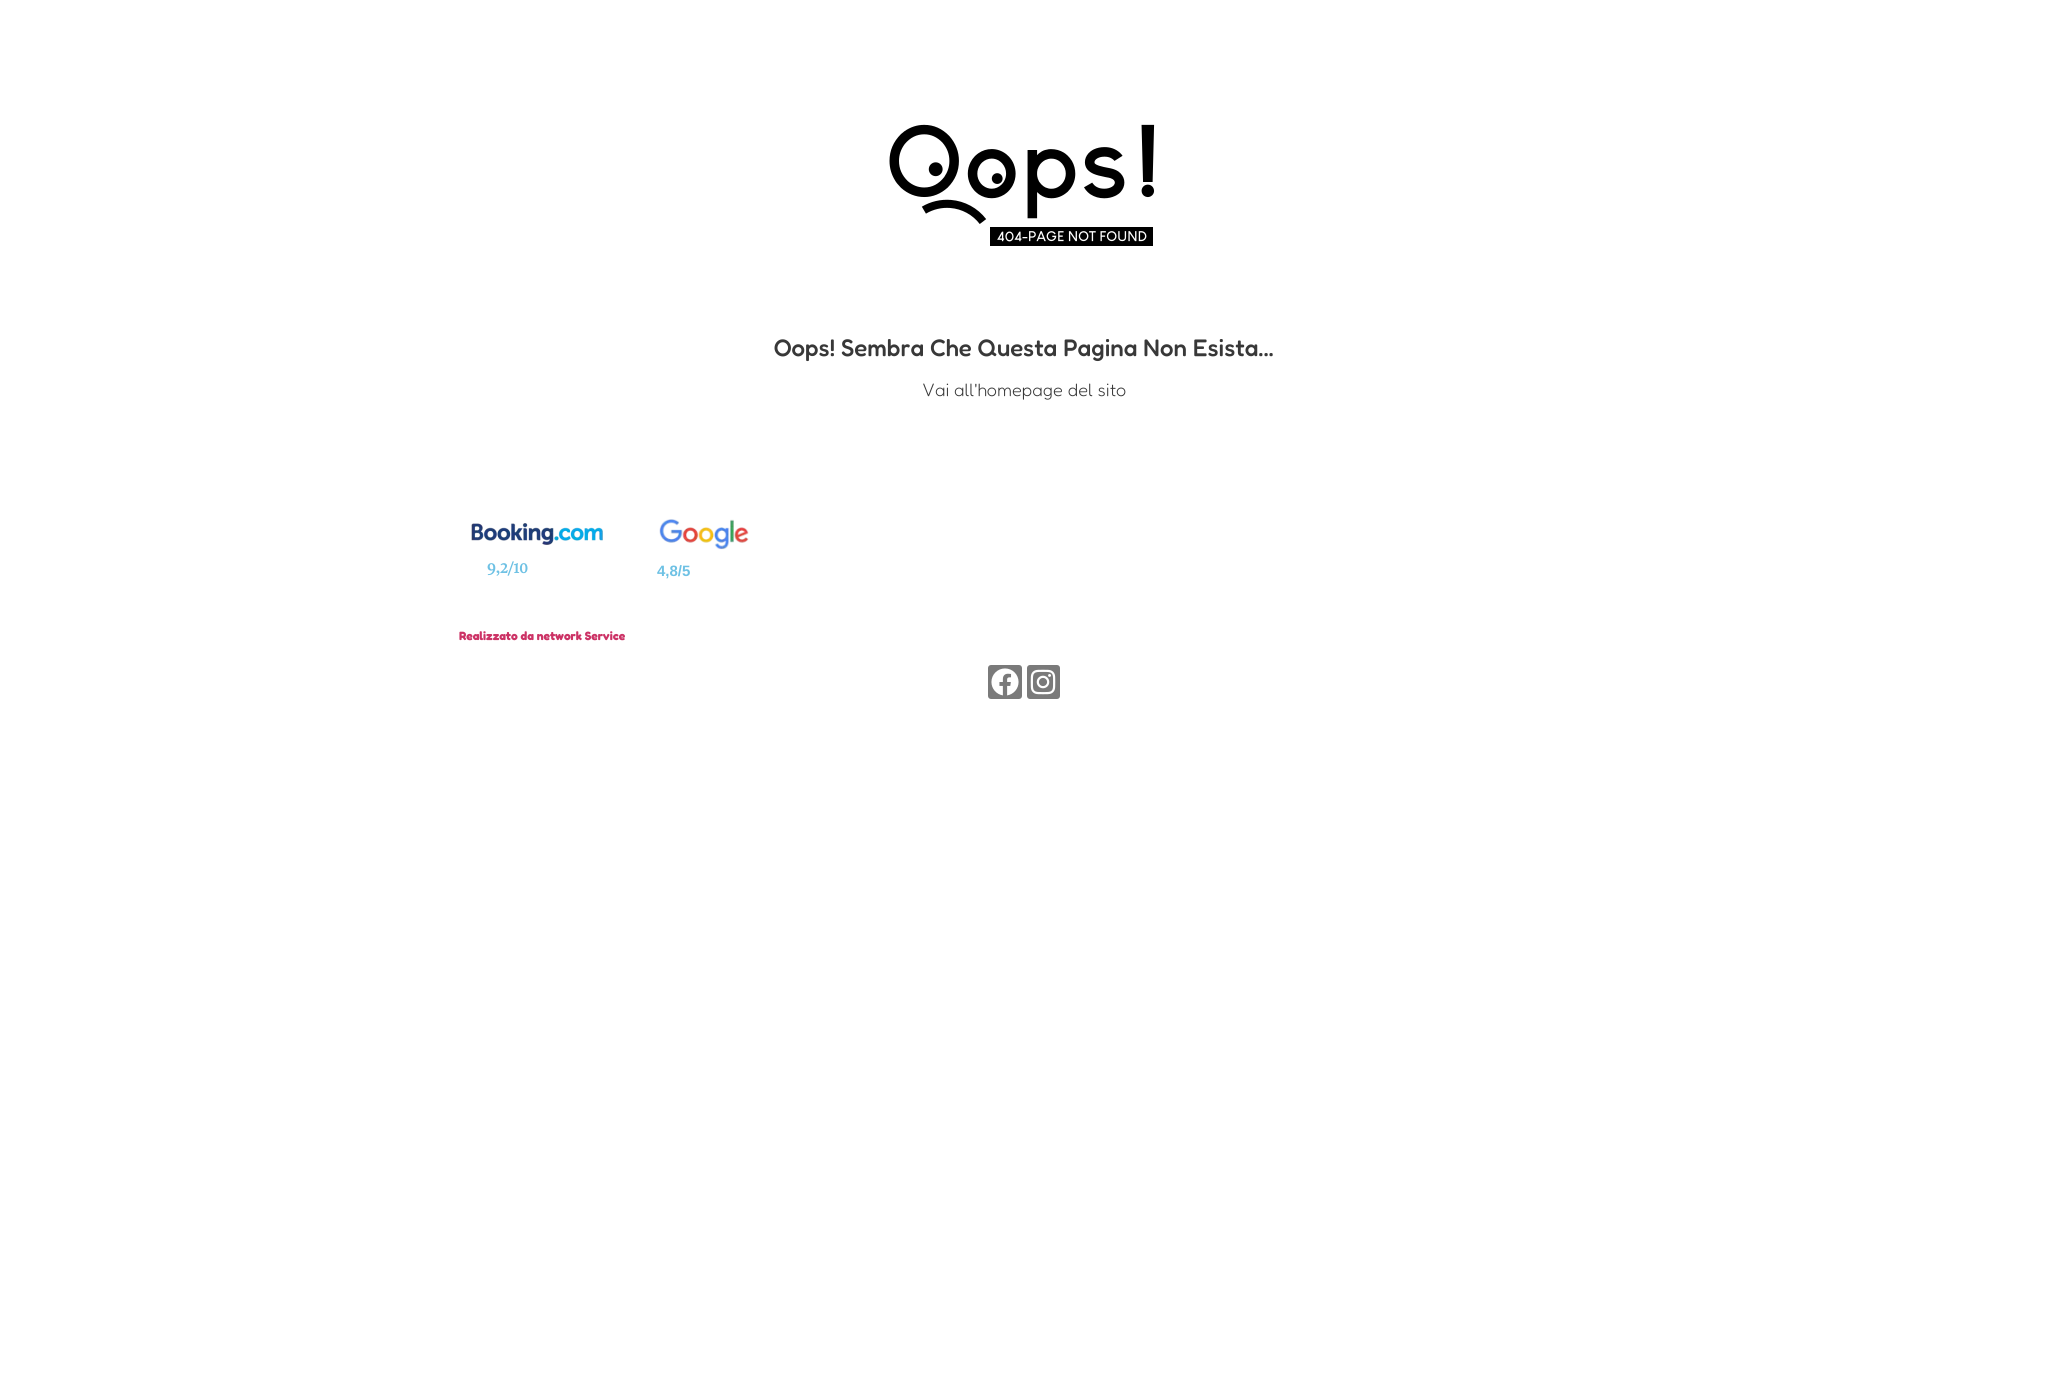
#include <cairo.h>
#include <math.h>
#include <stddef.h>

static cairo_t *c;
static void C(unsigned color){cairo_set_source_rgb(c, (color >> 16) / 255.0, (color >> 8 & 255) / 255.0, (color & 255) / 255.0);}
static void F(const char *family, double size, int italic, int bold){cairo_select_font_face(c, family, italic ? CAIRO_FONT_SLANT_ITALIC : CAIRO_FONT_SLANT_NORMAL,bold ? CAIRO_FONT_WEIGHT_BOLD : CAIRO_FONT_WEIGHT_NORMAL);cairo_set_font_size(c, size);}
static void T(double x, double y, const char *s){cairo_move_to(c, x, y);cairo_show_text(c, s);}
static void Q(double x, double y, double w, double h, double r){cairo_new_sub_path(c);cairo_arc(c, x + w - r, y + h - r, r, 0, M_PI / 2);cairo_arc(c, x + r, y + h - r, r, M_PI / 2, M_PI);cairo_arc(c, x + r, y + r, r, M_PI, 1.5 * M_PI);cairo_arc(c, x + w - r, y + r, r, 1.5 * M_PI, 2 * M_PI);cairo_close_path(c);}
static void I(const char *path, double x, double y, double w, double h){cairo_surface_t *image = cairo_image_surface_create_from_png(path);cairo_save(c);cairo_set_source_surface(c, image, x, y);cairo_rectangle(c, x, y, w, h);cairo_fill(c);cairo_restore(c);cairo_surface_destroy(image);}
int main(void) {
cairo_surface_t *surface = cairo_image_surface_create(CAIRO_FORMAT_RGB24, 2048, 1390);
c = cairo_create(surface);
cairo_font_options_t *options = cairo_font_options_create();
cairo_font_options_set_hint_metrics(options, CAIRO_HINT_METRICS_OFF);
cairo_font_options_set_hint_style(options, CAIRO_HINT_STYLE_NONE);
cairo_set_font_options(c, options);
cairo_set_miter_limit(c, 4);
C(0xffffff);
cairo_paint(c);
I("1.png",889,124,266,122);
F("Fredoka Medium",24,0,0);
C(0x383838);
T(774,356,"Oops! Sembra Che Questa Pagina Non Esista...");
F("Fredoka Light",18,0,0);
T(922,396,"Vai all'homepage del sito");
I("2.png",471,523,132,22);
F("Castoro",15,0,1);
C(0x6ec1e4);
T(487,573,"9,2/10");
I("3.png",659,519,90,31);
F("Liberation Sans",15,0,1);
T(657,576,"4,8/5");
F("Fredoka",12,0,1);
C(0xcc3366);
T(459,640,"Realizzato da network Service");
C(0x7a7a7a);
Q(988,665,34,34,3);
cairo_fill(c);
I("4.png",991,668,28,28);
Q(1027,665,33,34,3);
cairo_fill(c);
I("5.png",1030,669,26,26);
cairo_surface_write_to_png(surface, "o.png");
cairo_font_options_destroy(options);
cairo_destroy(c);
cairo_surface_destroy(surface);
return 0;
}
